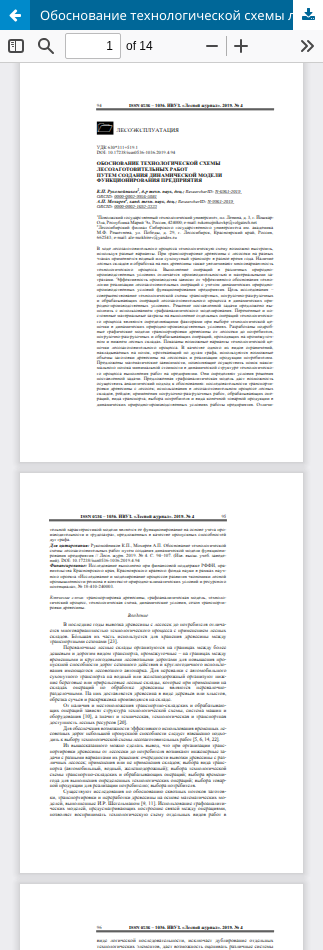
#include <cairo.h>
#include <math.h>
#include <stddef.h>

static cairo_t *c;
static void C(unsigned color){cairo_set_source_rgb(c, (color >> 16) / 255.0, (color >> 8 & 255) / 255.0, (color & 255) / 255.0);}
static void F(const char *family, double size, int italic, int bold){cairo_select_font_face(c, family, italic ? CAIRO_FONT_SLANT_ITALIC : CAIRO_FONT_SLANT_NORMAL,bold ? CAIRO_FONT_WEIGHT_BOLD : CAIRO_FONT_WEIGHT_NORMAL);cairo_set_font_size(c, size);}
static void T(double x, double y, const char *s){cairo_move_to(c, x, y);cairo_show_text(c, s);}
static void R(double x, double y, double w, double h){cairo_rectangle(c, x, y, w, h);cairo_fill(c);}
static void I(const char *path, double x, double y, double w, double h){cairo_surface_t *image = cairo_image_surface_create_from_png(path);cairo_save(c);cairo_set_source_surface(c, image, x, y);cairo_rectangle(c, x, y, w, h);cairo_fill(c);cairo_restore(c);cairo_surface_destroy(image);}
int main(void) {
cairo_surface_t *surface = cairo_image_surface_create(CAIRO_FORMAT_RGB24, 323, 950);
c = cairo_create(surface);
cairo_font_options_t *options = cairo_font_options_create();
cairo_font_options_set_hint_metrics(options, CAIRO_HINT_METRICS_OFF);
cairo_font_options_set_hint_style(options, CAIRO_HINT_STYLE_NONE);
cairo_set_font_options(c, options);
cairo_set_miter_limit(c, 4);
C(0xffffff);
cairo_paint(c);
C(0x006798);
R(30,0,263,30);
C(0x008acb);
R(0,0,30,30);
I("1.png",9,9,12,13);
F("Noto Sans",13,0,0);
C(0xffffff);
T(40,20,"Обоснование технологической схемы л");
I("2.png",302,8,13,12);
I("3.png",0,30,323,920);
cairo_surface_write_to_png(surface, "o.png");
cairo_font_options_destroy(options);
cairo_destroy(c);
cairo_surface_destroy(surface);
return 0;
}
